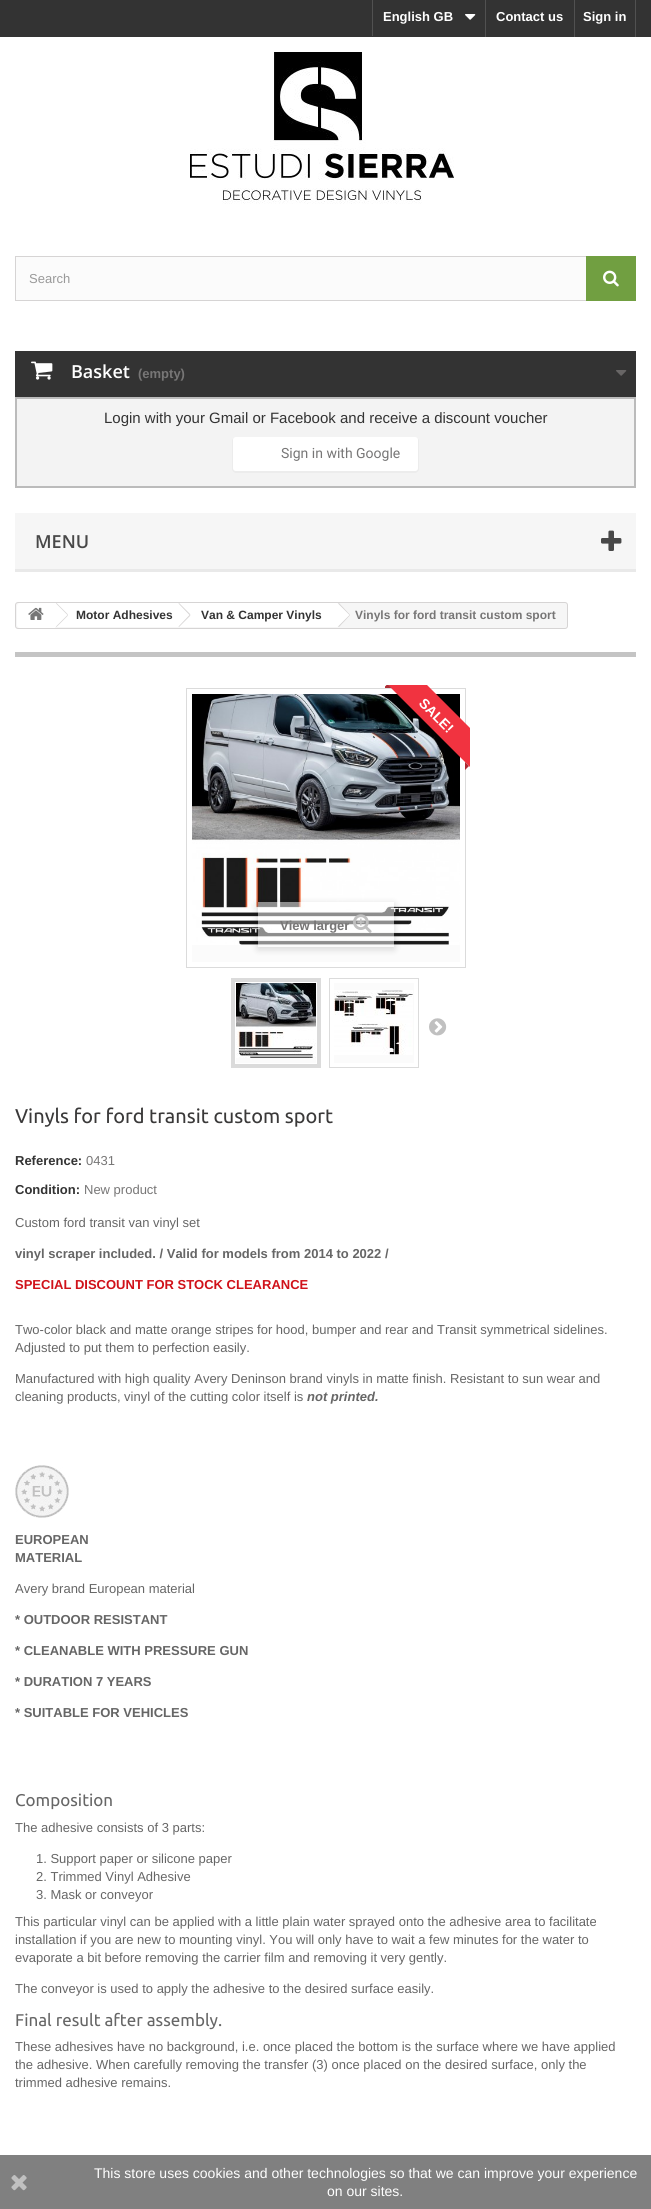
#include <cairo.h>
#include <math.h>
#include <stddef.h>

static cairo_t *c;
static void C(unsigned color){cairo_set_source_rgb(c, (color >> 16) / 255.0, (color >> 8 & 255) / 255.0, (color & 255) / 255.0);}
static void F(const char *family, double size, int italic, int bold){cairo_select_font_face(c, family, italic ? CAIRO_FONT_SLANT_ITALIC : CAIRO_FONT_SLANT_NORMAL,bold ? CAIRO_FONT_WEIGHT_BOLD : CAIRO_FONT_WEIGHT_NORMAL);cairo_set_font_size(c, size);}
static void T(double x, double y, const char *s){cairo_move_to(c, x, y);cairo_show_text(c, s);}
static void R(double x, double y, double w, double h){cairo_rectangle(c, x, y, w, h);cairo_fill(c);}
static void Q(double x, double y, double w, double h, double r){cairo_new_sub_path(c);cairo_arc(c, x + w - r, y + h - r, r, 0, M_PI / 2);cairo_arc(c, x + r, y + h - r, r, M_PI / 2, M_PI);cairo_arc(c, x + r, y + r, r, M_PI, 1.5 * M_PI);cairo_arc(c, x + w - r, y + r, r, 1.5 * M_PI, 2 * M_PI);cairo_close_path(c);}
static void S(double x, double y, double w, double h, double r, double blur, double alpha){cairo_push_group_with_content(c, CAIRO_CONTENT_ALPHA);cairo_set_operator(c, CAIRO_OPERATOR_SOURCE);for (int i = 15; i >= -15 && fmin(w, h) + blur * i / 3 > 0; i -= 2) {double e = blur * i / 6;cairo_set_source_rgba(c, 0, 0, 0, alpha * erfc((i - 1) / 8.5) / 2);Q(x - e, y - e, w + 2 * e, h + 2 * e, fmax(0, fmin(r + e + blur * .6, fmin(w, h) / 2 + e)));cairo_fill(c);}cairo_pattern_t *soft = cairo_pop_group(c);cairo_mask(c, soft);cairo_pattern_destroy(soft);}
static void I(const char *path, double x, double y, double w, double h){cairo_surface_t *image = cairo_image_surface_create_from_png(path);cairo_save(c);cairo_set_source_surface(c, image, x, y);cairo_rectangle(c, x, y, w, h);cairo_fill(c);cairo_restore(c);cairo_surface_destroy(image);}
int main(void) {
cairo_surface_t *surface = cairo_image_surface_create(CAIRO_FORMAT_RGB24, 651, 2209);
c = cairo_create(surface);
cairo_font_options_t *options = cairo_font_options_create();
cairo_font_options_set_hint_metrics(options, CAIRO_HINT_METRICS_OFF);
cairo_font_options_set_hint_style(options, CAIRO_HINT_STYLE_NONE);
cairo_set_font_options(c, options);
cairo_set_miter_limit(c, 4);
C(0xffffff);
cairo_paint(c);
C(0x333333);
R(0,0,651,37);
C(0x515151);
R(372,0,1,36);
F("Liberation Sans",13,0,1);
C(0xffffff);
T(383,21,"English GB");
I("1.png",465,14,11,6);
C(0x515151);
R(485,0,1,37);
C(0xffffff);
T(496,21,"Contact us");
C(0x515151);
R(635,0,1,37);
R(574,0,1,37);
C(0xffffff);
T(583,21,"Sign in");
I("2.png",190,52,264,152);
C(0xfbfbfb);
R(16,257,570,43);
cairo_rectangle(c,15.5,256.5,620,44);
C(0xd6d4d4);
cairo_set_line_width(c,1);
cairo_stroke(c);
F("Liberation Sans",13,0,0);
C(0x999999);
T(29,283,"Search");
C(0x719f41);
R(586,256,50,45);
I("3.png",603,270,16,17);
C(0x333333);
R(15,351,621,46);
I("4.png",31,361,22,19);
F("Open Sans SemiBold",18,0,0);
C(0xffffff);
T(71,378,"Basket");
F("Liberation Sans",13,0,1);
C(0x777676);
T(138,378,"(empty)");
I("5.png",616,370,11,6);
C(0xf3f3f3);
cairo_rectangle(c,16,398,619,89);
cairo_fill_preserve(c);
C(0xbbbbbb);
cairo_set_line_width(c,2);
cairo_stroke(c);
F("Liberation Sans",15,0,0);
C(0x333333);
T(104,423,"Login with your Gmail or Facebook and receive a discount voucher");
C(0xececec);
cairo_new_path(c);
cairo_move_to(c,236,437);
cairo_curve_to(c,234,437,232,439,232,441);
cairo_line_to(c,232,469);
cairo_curve_to(c,232,471,234,473,236,473);
cairo_line_to(c,415,473);
cairo_curve_to(c,417,473,419,471,419,469);
cairo_line_to(c,419,441);
cairo_curve_to(c,419,439,417,437,415,437);
cairo_curve_to(c,417,437,418,438,418,440);
cairo_line_to(c,418,468);
cairo_curve_to(c,418,470,417,471,415,471);
cairo_line_to(c,236,471);
cairo_curve_to(c,234,471,233,470,233,468);
cairo_line_to(c,233,440);
cairo_curve_to(c,233,438,234,437,236,437);
cairo_close_path(c);
cairo_fill(c);
C(0xffffff);
Q(233,437,185,34,3);
cairo_fill(c);
F("Roboto",14,0,0);
C(0x777676);
T(281,458,"Sign in with Google");
C(0xf6f6f6);
R(15,513,621,56);
C(0xe9e9e9);
R(15,569,621,3);
F("Open Sans SemiBold",18,0,0);
C(0x484848);
T(35,548,"MENU");
I("6.png",601,530,21,21);
C(0xf6f6f6);
Q(15.5,602.5,552,26,2.5);
cairo_fill_preserve(c);
C(0xd6d4d4);
cairo_set_line_width(c,1);
cairo_stroke(c);
C(0xffffff);
cairo_new_path(c);
cairo_move_to(c,20,603);
cairo_line_to(c,55,603);
cairo_line_to(c,55,628);
cairo_line_to(c,20,628);
cairo_curve_to(c,18.5,628,17,626.5,17,625);
cairo_line_to(c,17,606);
cairo_curve_to(c,17,604.5,18.5,603,20,603);
cairo_close_path(c);
cairo_fill(c);
I("7.png",28,607,16,13);
R(55,603,124,24);
C(0xd6d4d4);
cairo_new_path(c);
cairo_move_to(c,56.5,603);
cairo_line_to(c,68,614.5);
cairo_line_to(c,67.5,615);
cairo_line_to(c,56,603.5);
cairo_close_path(c);
cairo_move_to(c,67.5,615);
cairo_line_to(c,68,615.5);
cairo_line_to(c,56.5,627);
cairo_line_to(c,56,626.5);
cairo_close_path(c);
cairo_fill(c);
F("Liberation Sans",12,0,1);
C(0x333333);
T(76,619,"Motor Adhesives");
C(0xffffff);
cairo_new_path(c);
cairo_move_to(c,190,603.5);
cairo_line_to(c,199.5,613.5);
cairo_curve_to(c,200.5,614.5,200.5,615.5,199.5,616.5);
cairo_line_to(c,190,626.5);
cairo_curve_to(c,189,627,187.5,627,187,626.5);
cairo_line_to(c,177,616.5);
cairo_curve_to(c,176.5,615.5,176.5,614.5,177,613.5);
cairo_line_to(c,187,603.5);
cairo_curve_to(c,187.5,603,189,603,190,603.5);
cairo_close_path(c);
cairo_fill(c);
R(179,603,158,24);
C(0xd6d4d4);
cairo_new_path(c);
cairo_move_to(c,179,603);
cairo_line_to(c,190.5,614.5);
cairo_line_to(c,189.5,615);
cairo_line_to(c,178.5,603.5);
cairo_close_path(c);
cairo_move_to(c,189.5,615);
cairo_line_to(c,190.5,615.5);
cairo_line_to(c,179,627);
cairo_line_to(c,178.5,626.5);
cairo_close_path(c);
cairo_fill(c);
C(0x333333);
T(201,619,"Van & Camper Vinyls");
C(0xffffff);
cairo_new_path(c);
cairo_move_to(c,339.5,603.5);
cairo_line_to(c,349.5,613.5);
cairo_curve_to(c,350,614.5,350,615.5,349.5,616.5);
cairo_line_to(c,339.5,626.5);
cairo_curve_to(c,338.5,627,337.5,627,336.5,626.5);
cairo_line_to(c,327,616.5);
cairo_curve_to(c,326,615.5,326,614.5,327,613.5);
cairo_line_to(c,336.5,603.5);
cairo_curve_to(c,337.5,603,338.5,603,339.5,603.5);
cairo_close_path(c);
cairo_fill(c);
C(0xd6d4d4);
cairo_new_path(c);
cairo_move_to(c,339,603);
cairo_line_to(c,350,614.5);
cairo_line_to(c,349.5,615);
cairo_line_to(c,338,603.5);
cairo_close_path(c);
cairo_move_to(c,349.5,615);
cairo_line_to(c,350,615.5);
cairo_line_to(c,339,627);
cairo_line_to(c,338,626.5);
cairo_close_path(c);
cairo_fill(c);
C(0x777676);
T(355,619,"Vinyls for ford transit custom sport");
C(0xc4c4c4);
R(15,652,621,5);
cairo_rectangle(c,186.5,688.5,279,279);
C(0xdbdbdb);
cairo_stroke(c);
I("8.png",192,694,268,251);
cairo_save(c);
cairo_rectangle(c,385,685,85,85);
cairo_clip(c);
C(0xf13340);
cairo_new_path(c);
cairo_move_to(c,401,659);
cairo_line_to(c,493,751);
cairo_line_to(c,474,771);
cairo_line_to(c,382,679);
cairo_close_path(c);
cairo_fill(c);
C(0xad2b34);
cairo_new_path(c);
cairo_move_to(c,391.5,688);
cairo_line_to(c,383.5,688);
cairo_line_to(c,387.5,684);
cairo_close_path(c);
cairo_fill(c);
cairo_restore(c);
F("Liberation Sans",14,0,1);
C(0xffffff);
cairo_save(c);
cairo_translate(c,418,704);
cairo_rotate(c,45 * M_PI / 180);
T(0,0,"SALE!");
cairo_restore(c);
C(0xad2b34);
cairo_new_path(c);
cairo_move_to(c,465,770);
cairo_line_to(c,465,762);
cairo_line_to(c,469,766);
cairo_close_path(c);
cairo_fill(c);
C(0xfbfbfb);
R(192,945,268,17);
cairo_save(c);
cairo_set_fill_rule(c,CAIRO_FILL_RULE_EVEN_ODD);
cairo_new_path(c);
cairo_move_to(c,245,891);
cairo_line_to(c,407,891);
cairo_line_to(c,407,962);
cairo_line_to(c,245,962);
cairo_close_path(c);
cairo_move_to(c,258,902);
cairo_line_to(c,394,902);
cairo_line_to(c,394,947);
cairo_line_to(c,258,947);
cairo_close_path(c);
cairo_clip(c);
C(0x000000);
S(258,904,136,45,0,4,.16);
cairo_restore(c);
cairo_set_source_rgba(c,1,1,1,0.5);
R(258,902,136,43);
F("Liberation Sans",13,0,1);
C(0x777676);
T(280,930,"View larger");
I("9.png",353,914,19,19);
cairo_rectangle(c,231.5,978.5,89,89);
C(0xdbdbdb);
cairo_stroke(c);
C(0xfbfbfb);
R(236,1058,80,5);
cairo_rectangle(c,233.5,980.5,85,85);
C(0xdbdbdb);
cairo_set_line_width(c,3);
cairo_stroke(c);
I("10.png",236,983,80,75);
cairo_rectangle(c,329.5,978.5,89,89);
cairo_set_line_width(c,1);
cairo_stroke(c);
C(0xfbfbfb);
R(334,983,80,80);
I("11.png",334,990,79,65);
I("12.png",429,1018,18,18);
F("Ubuntu",20,0,0);
C(0x3a3939);
T(15,1123,"Vinyls for ford transit custom sport");
F("Liberation Sans",13,0,1);
C(0x333333);
T(15,1165,"Reference:");
F("Liberation Sans",13,0,0);
C(0x777676);
T(86,1165,"0431");
F("Liberation Sans",13,0,1);
C(0x333333);
T(15,1194,"Condition:");
F("Liberation Sans",13,0,0);
C(0x777676);
T(84,1194,"New product");
C(0x666666);
T(15,1227,"Custom ford transit van vinyl set");
F("Liberation Sans",13,0,1);
T(15,1258,"vinyl scraper included. / Valid for models from 2014 to 2022 /");
C(0xd0121a);
T(15,1289,"SPECIAL DISCOUNT FOR STOCK CLEARANCE");
F("Liberation Sans",13,0,0);
C(0x666666);
T(15,1334,"Two-color black and matte orange stripes for hood, bumper and rear and Transit symmetrical sidelines.");
T(15,1352,"Adjusted to put them to perfection easily.");
T(15,1383,"Manufactured with high quality Avery Deninson brand vinyls in matte finish. Resistant to sun wear and");
T(15,1401,"cleaning products, vinyl of the cutting color itself is");
F("Liberation Sans",13,1,1);
T(307,1401,"not printed.");
I("13.png",15,1465,54,53);
F("Liberation Sans",13,0,1);
T(15,1544,"EUROPEAN");
T(15,1562,"MATERIAL");
F("Liberation Sans",13,0,0);
T(15,1593,"Avery brand European material");
F("Liberation Sans",13,0,1);
T(15,1624,"* OUTDOOR RESISTANT");
T(15,1655,"* CLEANABLE WITH PRESSURE GUN");
T(15,1686,"* DURATION 7 YEARS");
T(15,1717,"* SUITABLE FOR VEHICLES");
F("Ubuntu",17,0,0);
T(15,1806,"Composition");
F("Liberation Sans",13,0,0);
T(15,1832,"The adhesive consists of 3 parts:");
T(36,1863,"1. Support paper or silicone paper");
T(36,1881,"2. Trimmed Vinyl Adhesive");
T(36,1899,"3. Mask or conveyor");
T(15,1926,"This particular vinyl can be applied with a little plain water sprayed onto the adhesive area to facilitate");
T(15,1944,"installation if you are new to mounting vinyl. You will only have to wait a few minutes for the water to");
T(15,1962,"evaporate a bit before removing the carrier film and removing it very gently.");
T(15,1993,"The conveyor is used to apply the adhesive to the desired surface easily.");
F("Ubuntu",17,0,0);
T(15,2026,"Final result after assembly.");
F("Liberation Sans",13,0,0);
T(15,2051,"These adhesives have no background, i.e. once placed the bottom is the surface where we have applied");
T(15,2069,"the adhesive. When carefully removing the transfer (3) once placed on the desired surface, only the");
T(15,2087,"trimmed adhesive remains.");
C(0x808080);
R(0,2155,651,54);
I("14.png",11,2175,16,16);
F("Liberation Sans",14,0,0);
C(0xffffff);
T(94,2178,"This store uses cookies and other technologies so that we can improve your experience");
T(327,2196,"on our sites.");
cairo_surface_write_to_png(surface, "o.png");
cairo_font_options_destroy(options);
cairo_destroy(c);
cairo_surface_destroy(surface);
return 0;
}
